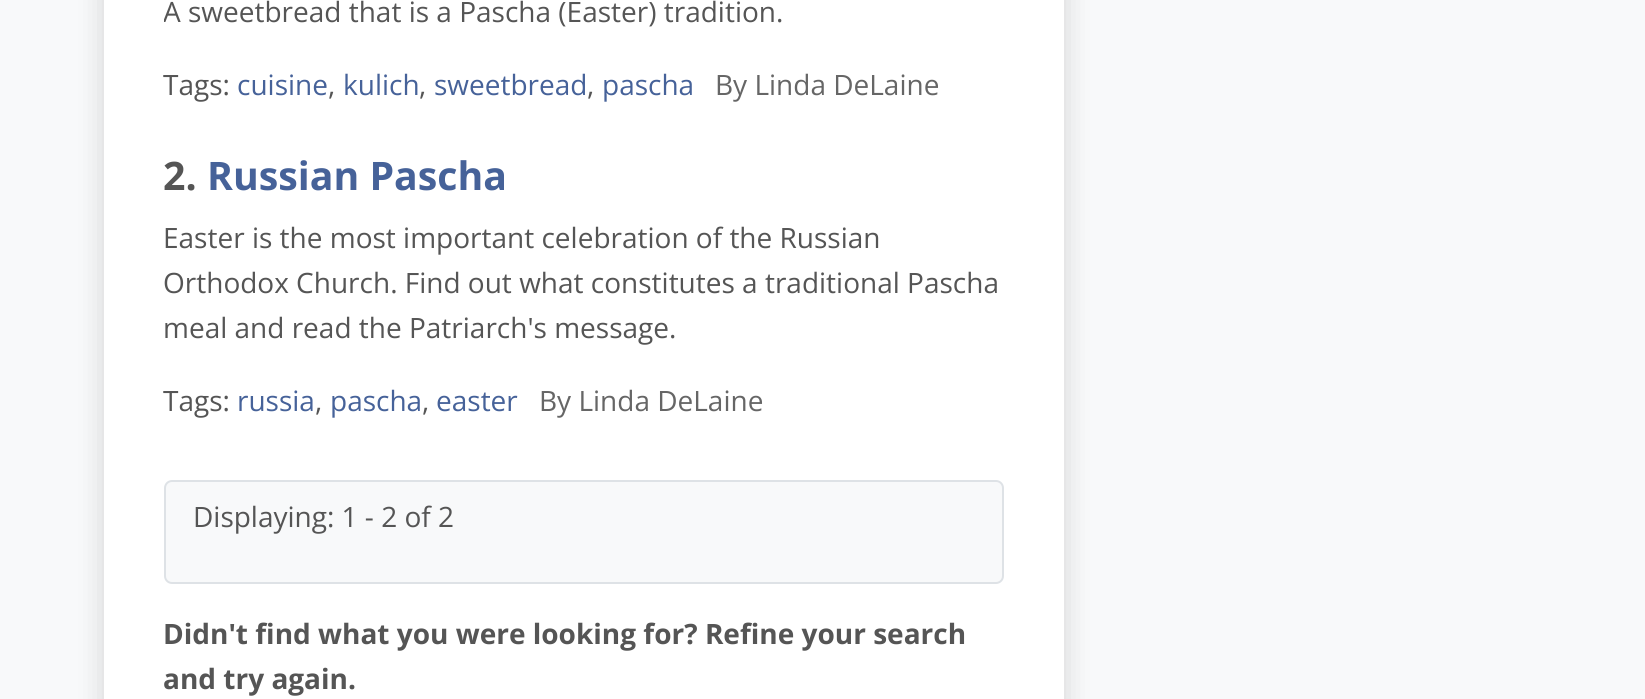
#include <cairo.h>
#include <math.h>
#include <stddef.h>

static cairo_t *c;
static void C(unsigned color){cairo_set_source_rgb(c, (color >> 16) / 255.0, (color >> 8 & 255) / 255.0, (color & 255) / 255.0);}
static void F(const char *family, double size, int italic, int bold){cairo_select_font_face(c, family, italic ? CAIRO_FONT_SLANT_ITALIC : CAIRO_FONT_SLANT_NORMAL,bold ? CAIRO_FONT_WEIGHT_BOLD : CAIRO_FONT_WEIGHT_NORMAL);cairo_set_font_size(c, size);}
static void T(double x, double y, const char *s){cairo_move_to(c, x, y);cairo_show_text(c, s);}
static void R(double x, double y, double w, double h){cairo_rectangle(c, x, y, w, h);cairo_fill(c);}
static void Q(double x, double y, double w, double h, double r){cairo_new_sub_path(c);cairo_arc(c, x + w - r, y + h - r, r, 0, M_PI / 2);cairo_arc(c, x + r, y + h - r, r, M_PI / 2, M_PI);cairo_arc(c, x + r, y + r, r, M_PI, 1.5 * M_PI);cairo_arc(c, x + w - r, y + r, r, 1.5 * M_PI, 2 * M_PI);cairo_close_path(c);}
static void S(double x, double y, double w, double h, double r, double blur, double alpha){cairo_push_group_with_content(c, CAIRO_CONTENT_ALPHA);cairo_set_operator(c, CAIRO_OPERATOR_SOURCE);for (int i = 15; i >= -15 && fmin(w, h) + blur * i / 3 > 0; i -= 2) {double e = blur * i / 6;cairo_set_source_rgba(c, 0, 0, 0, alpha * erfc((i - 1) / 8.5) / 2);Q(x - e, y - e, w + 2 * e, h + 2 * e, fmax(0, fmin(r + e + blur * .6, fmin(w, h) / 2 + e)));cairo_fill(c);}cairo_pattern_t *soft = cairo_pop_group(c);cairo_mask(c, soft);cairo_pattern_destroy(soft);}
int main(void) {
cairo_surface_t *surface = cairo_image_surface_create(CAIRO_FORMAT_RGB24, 1645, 699);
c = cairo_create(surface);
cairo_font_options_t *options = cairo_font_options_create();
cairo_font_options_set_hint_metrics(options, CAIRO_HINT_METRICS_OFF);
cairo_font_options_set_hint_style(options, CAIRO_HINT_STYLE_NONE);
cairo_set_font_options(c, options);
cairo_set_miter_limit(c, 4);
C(0xf8f9fa);
cairo_paint(c);
C(0x000000);
S(104,-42,960,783,0,14,.15);
C(0xffffff);
R(104,0,960,699);
cairo_save(c);
cairo_rectangle(c,164,0,840,108);
cairo_clip(c);
F("Open Sans",28,0,0);
C(0x555555);
T(163,22,"A sweetbread that is a Pascha (Easter) tradition.");
cairo_restore(c);
F("Open Sans",28,0,0);
C(0x555555);
T(163,95,"Tags:");
C(0x466299);
T(237,95,"cuisine");
C(0x555555);
T(328,95,",");
C(0x466299);
T(343,95,"kulich");
C(0x555555);
T(419,95,",");
C(0x466299);
T(434,95,"sweetbread");
C(0x555555);
T(587,95,",");
C(0x466299);
T(602,95,"pascha");
C(0x666666);
T(715,95,"By Linda DeLaine");
F("Open Sans",39.25,0,1);
C(0x555555);
T(163,190,"2.");
C(0x466299);
T(207,190,"Russian Pascha");
F("Open Sans",28,0,0);
C(0x555555);
T(163,248,"Easter is the most important celebration of the Russian");
T(163,293,"Orthodox Church. Find out what constitutes a traditional Pascha");
T(163,338,"meal and read the Patriarch's message.");
T(163,411,"Tags:");
C(0x466299);
T(237,411,"russia");
C(0x555555);
T(315,411,",");
C(0x466299);
T(330,411,"pascha");
C(0x555555);
T(422,411,",");
C(0x466299);
T(436,411,"easter");
C(0x666666);
T(539,411,"By Linda DeLaine");
C(0xf8f9fa);
Q(165,481,838,102,7);
cairo_fill_preserve(c);
C(0xdee2e6);
cairo_stroke(c);
C(0x555555);
T(193,527,"Displaying: 1 - 2 of 2");
F("Open Sans",28,0,1);
T(163,644,"Didn't find what you were looking for? Refine your search");
T(163,689,"and try again.");
cairo_surface_write_to_png(surface, "o.png");
cairo_font_options_destroy(options);
cairo_destroy(c);
cairo_surface_destroy(surface);
return 0;
}
